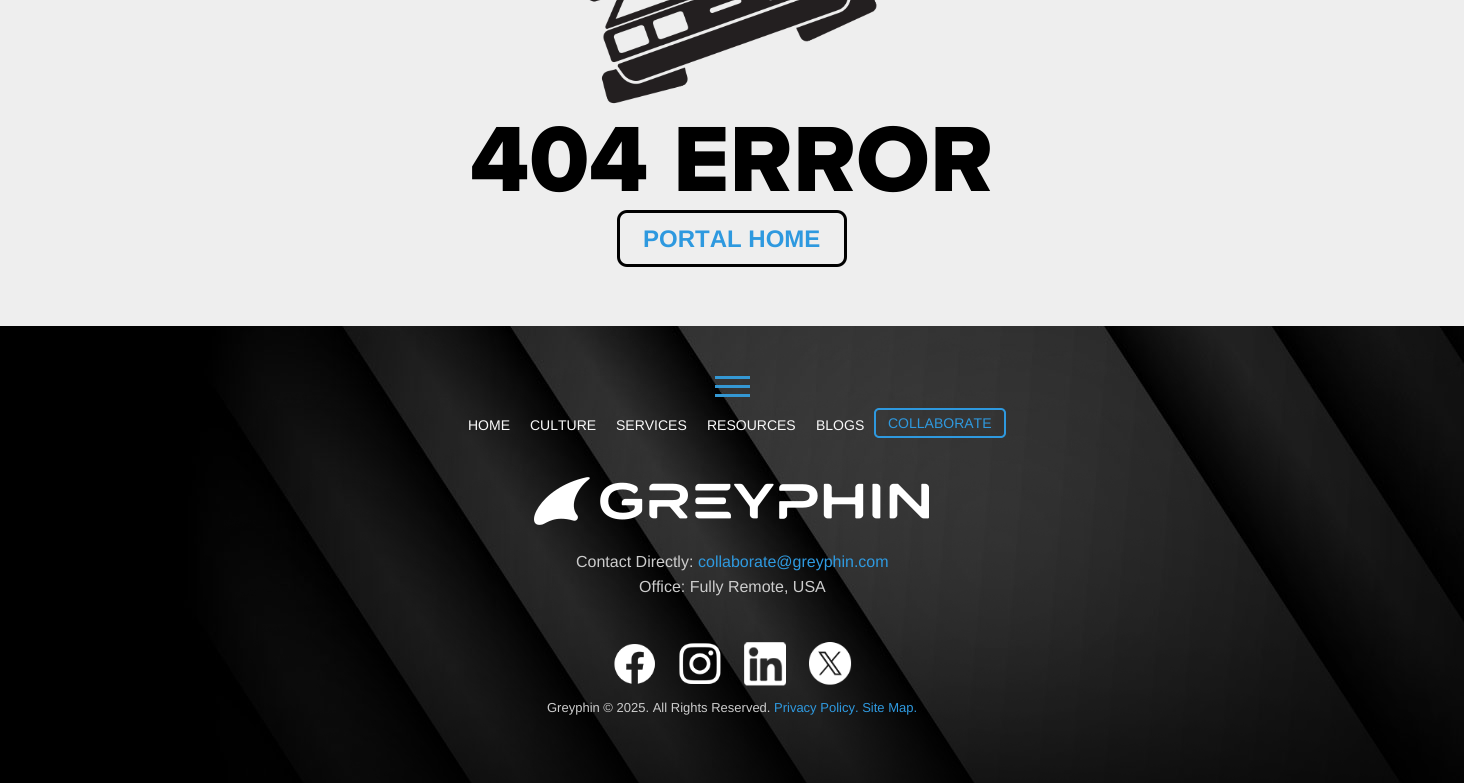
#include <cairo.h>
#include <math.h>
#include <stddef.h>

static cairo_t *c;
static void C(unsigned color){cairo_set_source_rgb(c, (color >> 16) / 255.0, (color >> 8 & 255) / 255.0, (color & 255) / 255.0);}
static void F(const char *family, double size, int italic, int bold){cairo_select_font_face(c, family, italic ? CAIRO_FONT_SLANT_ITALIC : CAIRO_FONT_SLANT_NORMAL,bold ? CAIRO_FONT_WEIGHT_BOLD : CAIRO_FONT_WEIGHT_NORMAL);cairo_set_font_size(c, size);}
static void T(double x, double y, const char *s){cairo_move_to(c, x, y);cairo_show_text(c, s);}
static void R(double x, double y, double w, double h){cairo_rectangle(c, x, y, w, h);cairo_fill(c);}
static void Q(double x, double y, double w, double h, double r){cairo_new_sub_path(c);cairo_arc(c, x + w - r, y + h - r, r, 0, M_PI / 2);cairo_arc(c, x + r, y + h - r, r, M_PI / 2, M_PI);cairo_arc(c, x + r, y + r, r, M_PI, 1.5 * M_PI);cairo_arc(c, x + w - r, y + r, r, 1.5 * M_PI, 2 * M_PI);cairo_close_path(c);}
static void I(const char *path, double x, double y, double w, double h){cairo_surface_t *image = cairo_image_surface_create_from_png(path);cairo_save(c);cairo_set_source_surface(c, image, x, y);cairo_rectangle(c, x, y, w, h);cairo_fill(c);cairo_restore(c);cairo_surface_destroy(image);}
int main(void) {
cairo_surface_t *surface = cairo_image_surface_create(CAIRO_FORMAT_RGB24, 1464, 783);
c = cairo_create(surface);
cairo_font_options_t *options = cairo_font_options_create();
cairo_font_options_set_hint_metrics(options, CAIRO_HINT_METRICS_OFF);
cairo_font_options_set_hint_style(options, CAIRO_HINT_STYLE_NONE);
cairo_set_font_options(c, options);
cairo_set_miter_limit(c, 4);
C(0xffffff);
cairo_paint(c);
I("1.png",0,326,1464,457);
C(0xeeeeee);
R(0,0,1464,326);
I("2.png",589,0,288,104);
F("Proxima Nova ExtraBold",96,0,0);
C(0x000000);
T(470,191,"404 ERROR");
Q(618.5,211.5,227,54,8.5);
cairo_set_line_width(c,3);
cairo_stroke(c);
F("Liberation Sans",24,0,1);
C(0x2e99df);
T(643,247,"PORTAL HOME");
C(0x3498d4);
R(715,376,35,3);
R(715,385,35,3);
R(715,394,35,3);
F("Liberation Sans",14,0,0);
C(0xf9f9f9);
T(468,430,"HOME");
T(530,430,"CULTURE");
T(616,430,"SERVICES");
T(707,430,"RESOURCES");
T(816,430,"BLOGS");
Q(875,409,130,28,4);
C(0x2e99df);
cairo_set_line_width(c,2);
cairo_stroke(c);
T(888,428,"COLLABORATE");
I("3.png",534,477,395,48);
F("Liberation Sans",16,0,0);
C(0xcccccc);
T(576,567,"Contact Directly:");
C(0x2e99df);
T(698,567,"collaborate@greyphin.com");
C(0xcccccc);
T(639,592,"Office: Fully Remote, USA");
I("4.png",614,644,41,40);
I("5.png",679,643,42,41);
I("6.png",744,642,42,44);
I("7.png",809,642,43,43);
F("Liberation Sans",13,0,0);
T(547,712,"Greyphin © 2025. All Rights Reserved.");
C(0x2e99df);
T(774,712,"Privacy Policy. Site Map.");
cairo_surface_write_to_png(surface, "o.png");
cairo_font_options_destroy(options);
cairo_destroy(c);
cairo_surface_destroy(surface);
return 0;
}
